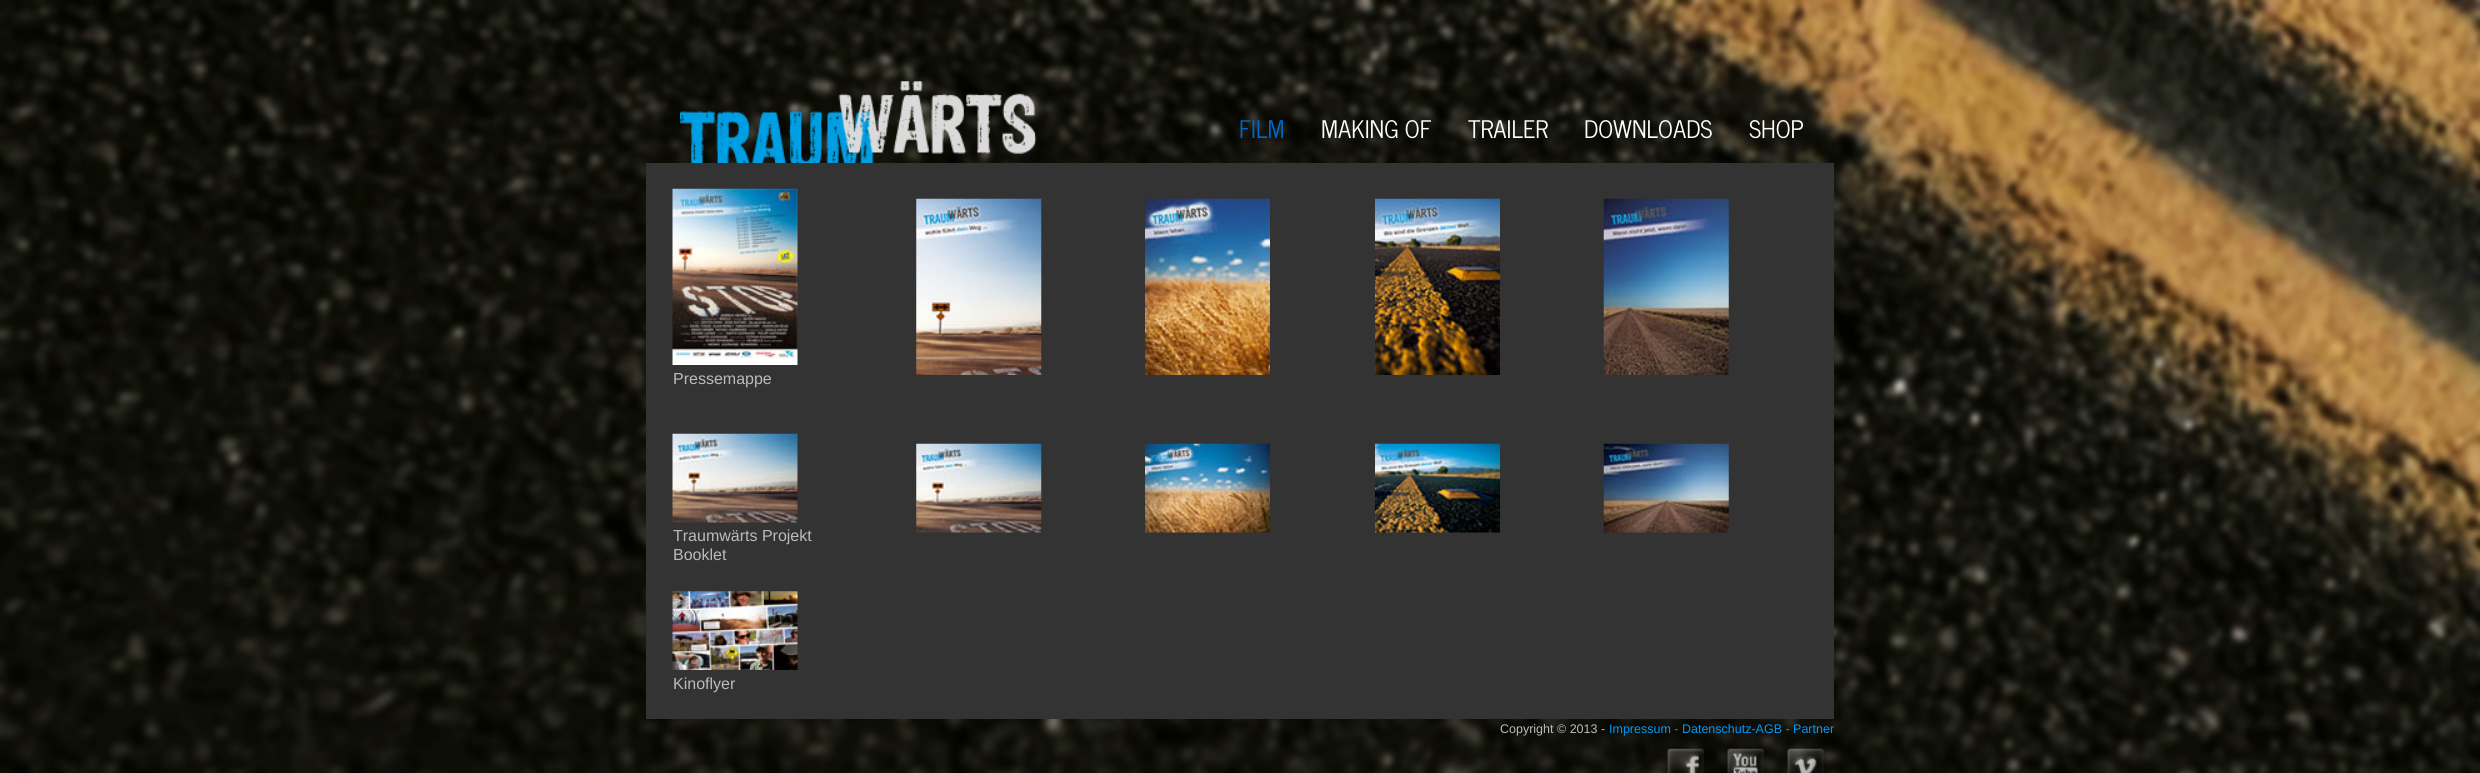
#include <cairo.h>
#include <math.h>
#include <stddef.h>

static cairo_t *c;
static void C(unsigned color){cairo_set_source_rgb(c, (color >> 16) / 255.0, (color >> 8 & 255) / 255.0, (color & 255) / 255.0);}
static void F(const char *family, double size, int italic, int bold){cairo_select_font_face(c, family, italic ? CAIRO_FONT_SLANT_ITALIC : CAIRO_FONT_SLANT_NORMAL,bold ? CAIRO_FONT_WEIGHT_BOLD : CAIRO_FONT_WEIGHT_NORMAL);cairo_set_font_size(c, size);}
static void T(double x, double y, const char *s){cairo_move_to(c, x, y);cairo_show_text(c, s);}
static void R(double x, double y, double w, double h){cairo_rectangle(c, x, y, w, h);cairo_fill(c);}
static void I(const char *path, double x, double y, double w, double h){cairo_surface_t *image = cairo_image_surface_create_from_png(path);cairo_save(c);cairo_set_source_surface(c, image, x, y);cairo_rectangle(c, x, y, w, h);cairo_fill(c);cairo_restore(c);cairo_surface_destroy(image);}
int main(void) {
cairo_surface_t *surface = cairo_image_surface_create(CAIRO_FORMAT_RGB24, 2480, 773);
c = cairo_create(surface);
cairo_font_options_t *options = cairo_font_options_create();
cairo_font_options_set_hint_metrics(options, CAIRO_HINT_METRICS_OFF);
cairo_font_options_set_hint_style(options, CAIRO_HINT_STYLE_NONE);
cairo_set_font_options(c, options);
cairo_set_miter_limit(c, 4);
C(0xffffff);
cairo_paint(c);
I("1.png",0,0,2480,773);
I("2.png",680,81,357,82);
F("News Cycle",24,0,0);
C(0x0066cc);
T(1239,138,"FILM");
C(0xffffff);
T(1321,138,"MAKING OF");
T(1468,138,"TRAILER");
T(1584,138,"DOWNLOADS");
T(1749,138,"SHOP");
C(0x333333);
R(646,163,1188,556);
I("3.png",916,198,126,177);
I("4.png",1145,198,125,177);
I("5.png",1375,198,125,177);
I("6.png",1603,198,126,177);
I("7.png",672,188,126,177);
F("Liberation Sans",16,0,0);
C(0xbbbbbb);
T(673,384,"Pressemappe");
I("8.png",916,443,126,90);
I("9.png",1145,443,125,90);
I("10.png",1375,443,125,90);
I("11.png",1603,443,126,90);
I("12.png",672,433,126,90);
T(673,541,"Traumwärts Projekt");
T(673,560,"Booklet");
I("13.png",672,591,126,79);
T(673,689,"Kinoflyer");
F("Liberation Sans",12.5,0,0);
T(1500,733,"Copyright © 2013 -");
C(0x0099ff);
T(1609,733,"Impressum - Datenschutz-AGB - Partner");
I("14.png",1667,748,37,25);
I("15.png",1727,748,37,25);
I("16.png",1787,748,37,25);
cairo_surface_write_to_png(surface, "o.png");
cairo_font_options_destroy(options);
cairo_destroy(c);
cairo_surface_destroy(surface);
return 0;
}
